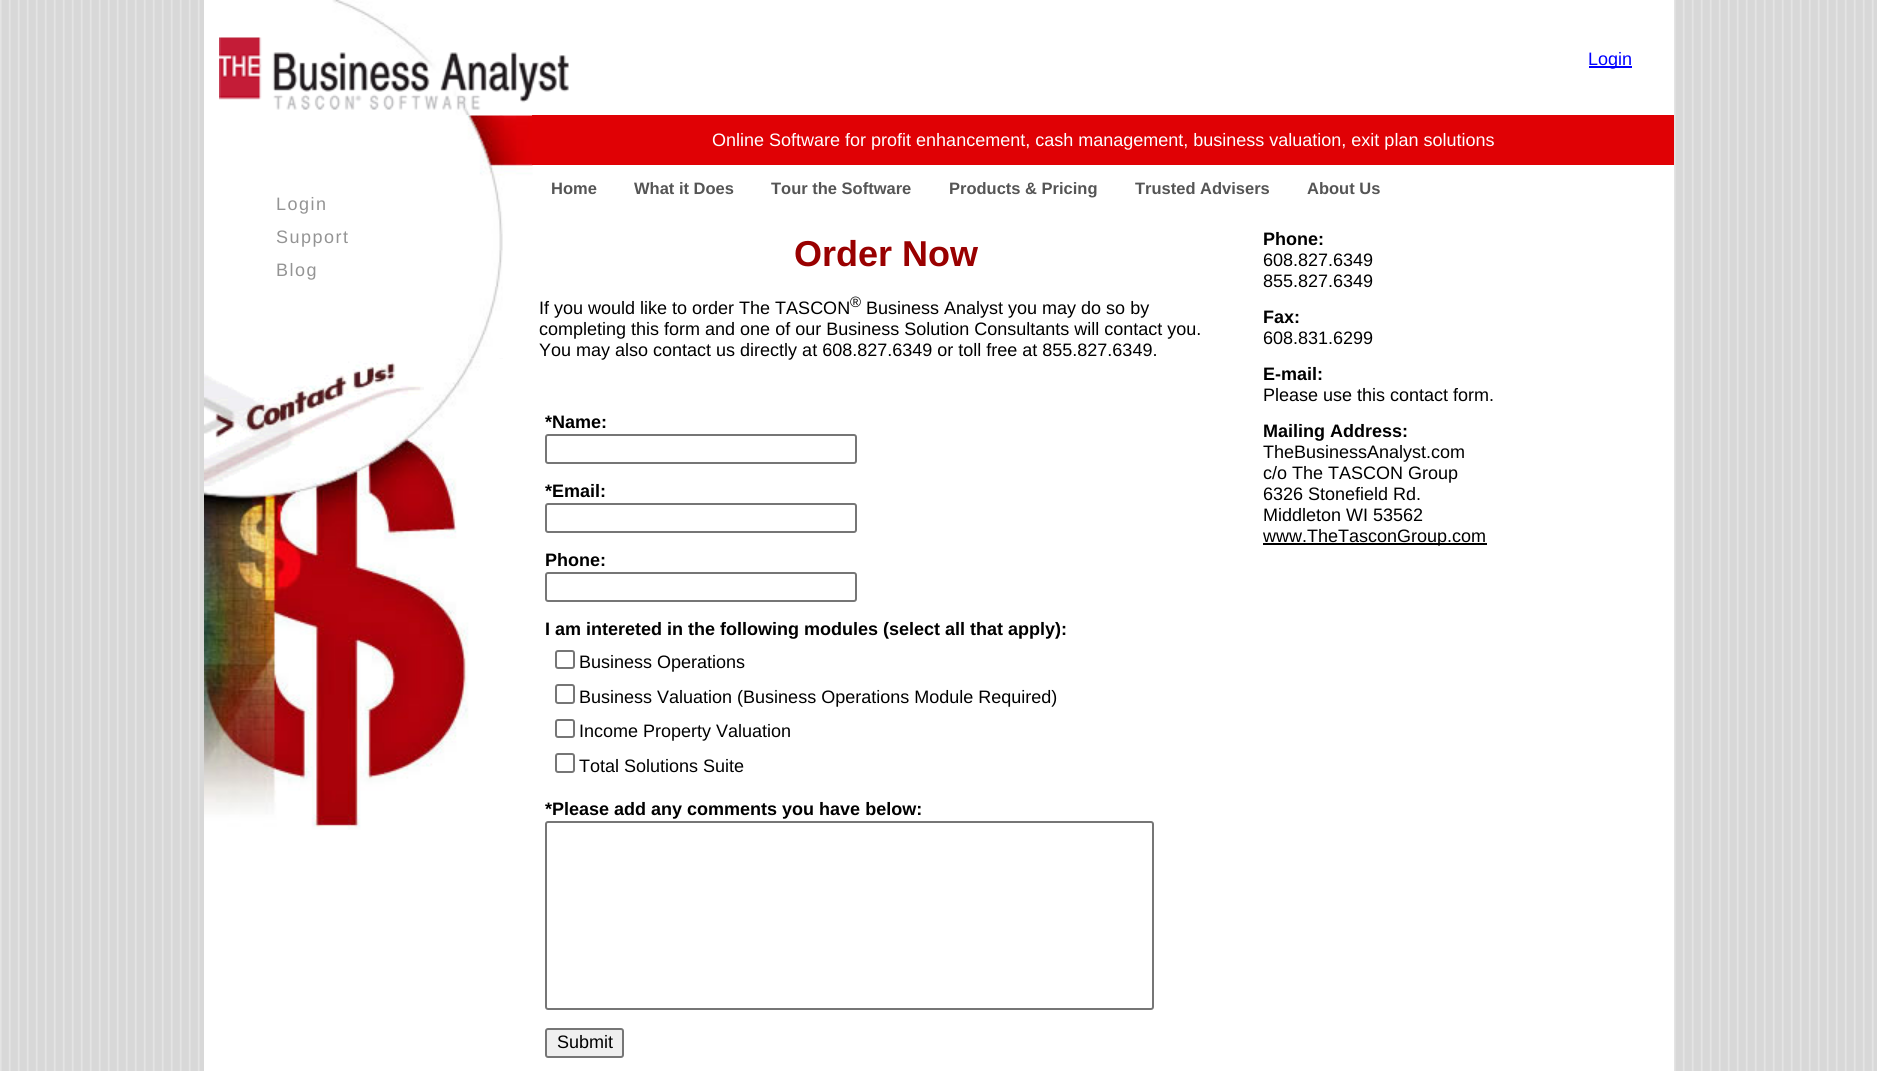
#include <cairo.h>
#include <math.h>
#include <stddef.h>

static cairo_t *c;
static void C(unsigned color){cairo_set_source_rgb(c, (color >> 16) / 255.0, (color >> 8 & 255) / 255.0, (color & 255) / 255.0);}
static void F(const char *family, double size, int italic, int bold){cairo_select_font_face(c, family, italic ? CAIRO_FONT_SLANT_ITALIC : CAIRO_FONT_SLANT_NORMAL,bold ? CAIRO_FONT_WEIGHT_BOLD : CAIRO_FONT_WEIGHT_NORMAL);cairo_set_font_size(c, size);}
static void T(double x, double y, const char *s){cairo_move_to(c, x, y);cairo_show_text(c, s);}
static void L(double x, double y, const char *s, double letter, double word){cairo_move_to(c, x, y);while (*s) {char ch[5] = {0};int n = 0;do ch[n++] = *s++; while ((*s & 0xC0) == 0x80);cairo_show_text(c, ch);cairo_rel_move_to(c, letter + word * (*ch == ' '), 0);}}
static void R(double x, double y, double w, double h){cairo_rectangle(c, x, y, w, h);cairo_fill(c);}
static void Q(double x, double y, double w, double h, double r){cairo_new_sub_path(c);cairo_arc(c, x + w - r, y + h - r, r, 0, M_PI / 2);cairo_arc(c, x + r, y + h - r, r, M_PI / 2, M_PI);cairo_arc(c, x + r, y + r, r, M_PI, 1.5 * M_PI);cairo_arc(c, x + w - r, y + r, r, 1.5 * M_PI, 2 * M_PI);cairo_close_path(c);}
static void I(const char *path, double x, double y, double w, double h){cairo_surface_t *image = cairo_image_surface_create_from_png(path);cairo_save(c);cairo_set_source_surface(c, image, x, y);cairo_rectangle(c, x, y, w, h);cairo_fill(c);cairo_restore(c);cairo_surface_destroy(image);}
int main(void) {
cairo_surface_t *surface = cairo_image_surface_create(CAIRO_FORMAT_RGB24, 1877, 1071);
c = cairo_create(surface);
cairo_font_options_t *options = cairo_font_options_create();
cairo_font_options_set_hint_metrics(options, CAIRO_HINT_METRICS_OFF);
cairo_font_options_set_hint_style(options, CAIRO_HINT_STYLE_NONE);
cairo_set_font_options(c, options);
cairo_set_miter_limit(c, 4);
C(0xffffff);
cairo_paint(c);
I("1.png",0,0,1877,1071);
C(0xffffff);
R(204,0,1470,1071);
I("2.png",332,0,138,116);
I("3.png",219,37,350,73);
C(0x0000ff);
R(1589,66,43,2);
F("Liberation Sans",18,0,0);
T(1588,65,"Login");
I("4.png",466,115,37,244);
I("5.png",467,115,66,119);
I("6.png",468,250,35,109);
C(0x949494);
L(276,210,"Login",1.5,0);
L(276,243,"Support",1.5,0);
L(276,276,"Blog",1.5,0);
I("7.png",204,358,298,472);
I("8.png",204,361,220,125);
C(0xe00105);
R(532,115,1142,50);
C(0xffffff);
T(712,146,"Online Software for profit enhancement, cash management, business valuation, exit plan solutions");
F("Liberation Sans",16.5,0,1);
C(0x555555);
T(551,194,"Home");
T(634,194,"What it Does");
T(771,194,"Tour the Software");
T(949,194,"Products & Pricing");
T(1135,194,"Trusted Advisers");
T(1307,194,"About Us");
F("Liberation Sans",36,0,1);
C(0x990000);
T(794,266,"Order Now");
F("Liberation Sans",18,0,0);
C(0x000000);
T(539,314,"If you would like to order The TASCON");
F("Liberation Sans",15,0,0);
T(850,307,"®");
F("Liberation Sans",18,0,0);
T(866,314,"Business Analyst you may do so by");
T(539,335,"completing this form and one of our Business Solution Consultants will contact you.");
T(539,356,"You may also contact us directly at 608.827.6349 or toll free at 855.827.6349.");
F("Liberation Sans",18,0,1);
T(545,428,"*Name:");
Q(546,435,310,28,2);
C(0x767676);
cairo_stroke(c);
C(0x000000);
T(545,497,"*Email:");
Q(546,504,310,28,2);
C(0x767676);
cairo_stroke(c);
C(0x000000);
T(545,566,"Phone:");
Q(546,573,310,28,2);
C(0x767676);
cairo_stroke(c);
C(0x000000);
T(545,635,"I am intereted in the following modules (select all that apply):");
Q(556,651,18,17,2);
C(0x767676);
cairo_stroke(c);
F("Liberation Sans",18,0,0);
C(0x000000);
T(579,668,"Business Operations");
Q(556,685,18,18,2);
C(0x767676);
cairo_stroke(c);
C(0x000000);
T(579,703,"Business Valuation (Business Operations Module Required)");
Q(556,720,18,17,2);
C(0x767676);
cairo_stroke(c);
C(0x000000);
T(579,737,"Income Property Valuation");
Q(556,754,18,18,2);
C(0x767676);
cairo_stroke(c);
C(0x000000);
T(579,772,"Total Solutions Suite");
F("Liberation Sans",18,0,1);
T(545,815,"*Please add any comments you have below:");
Q(546,822,607,187,2);
C(0x767676);
cairo_stroke(c);
C(0xefefef);
Q(546,1029,77,28,2);
cairo_fill_preserve(c);
C(0x767676);
cairo_stroke(c);
F("Liberation Sans",18,0,0);
C(0x000000);
T(557,1048,"Submit");
F("Liberation Sans",18,0,1);
T(1263,245,"Phone:");
F("Liberation Sans",18,0,0);
T(1263,266,"608.827.6349");
T(1263,287,"855.827.6349");
F("Liberation Sans",18,0,1);
T(1263,323,"Fax:");
F("Liberation Sans",18,0,0);
T(1263,344,"608.831.6299");
F("Liberation Sans",18,0,1);
T(1263,380,"E-mail:");
F("Liberation Sans",18,0,0);
T(1263,401,"Please use this contact form.");
F("Liberation Sans",18,0,1);
T(1263,437,"Mailing Address:");
F("Liberation Sans",18,0,0);
T(1263,458,"TheBusinessAnalyst.com");
T(1263,479,"c/o The TASCON Group");
T(1263,500,"6326 Stonefield Rd.");
T(1263,521,"Middleton WI 53562");
R(1263,543,224,2);
T(1263,542,"www.TheTasconGroup.com");
cairo_surface_write_to_png(surface, "o.png");
cairo_font_options_destroy(options);
cairo_destroy(c);
cairo_surface_destroy(surface);
return 0;
}
